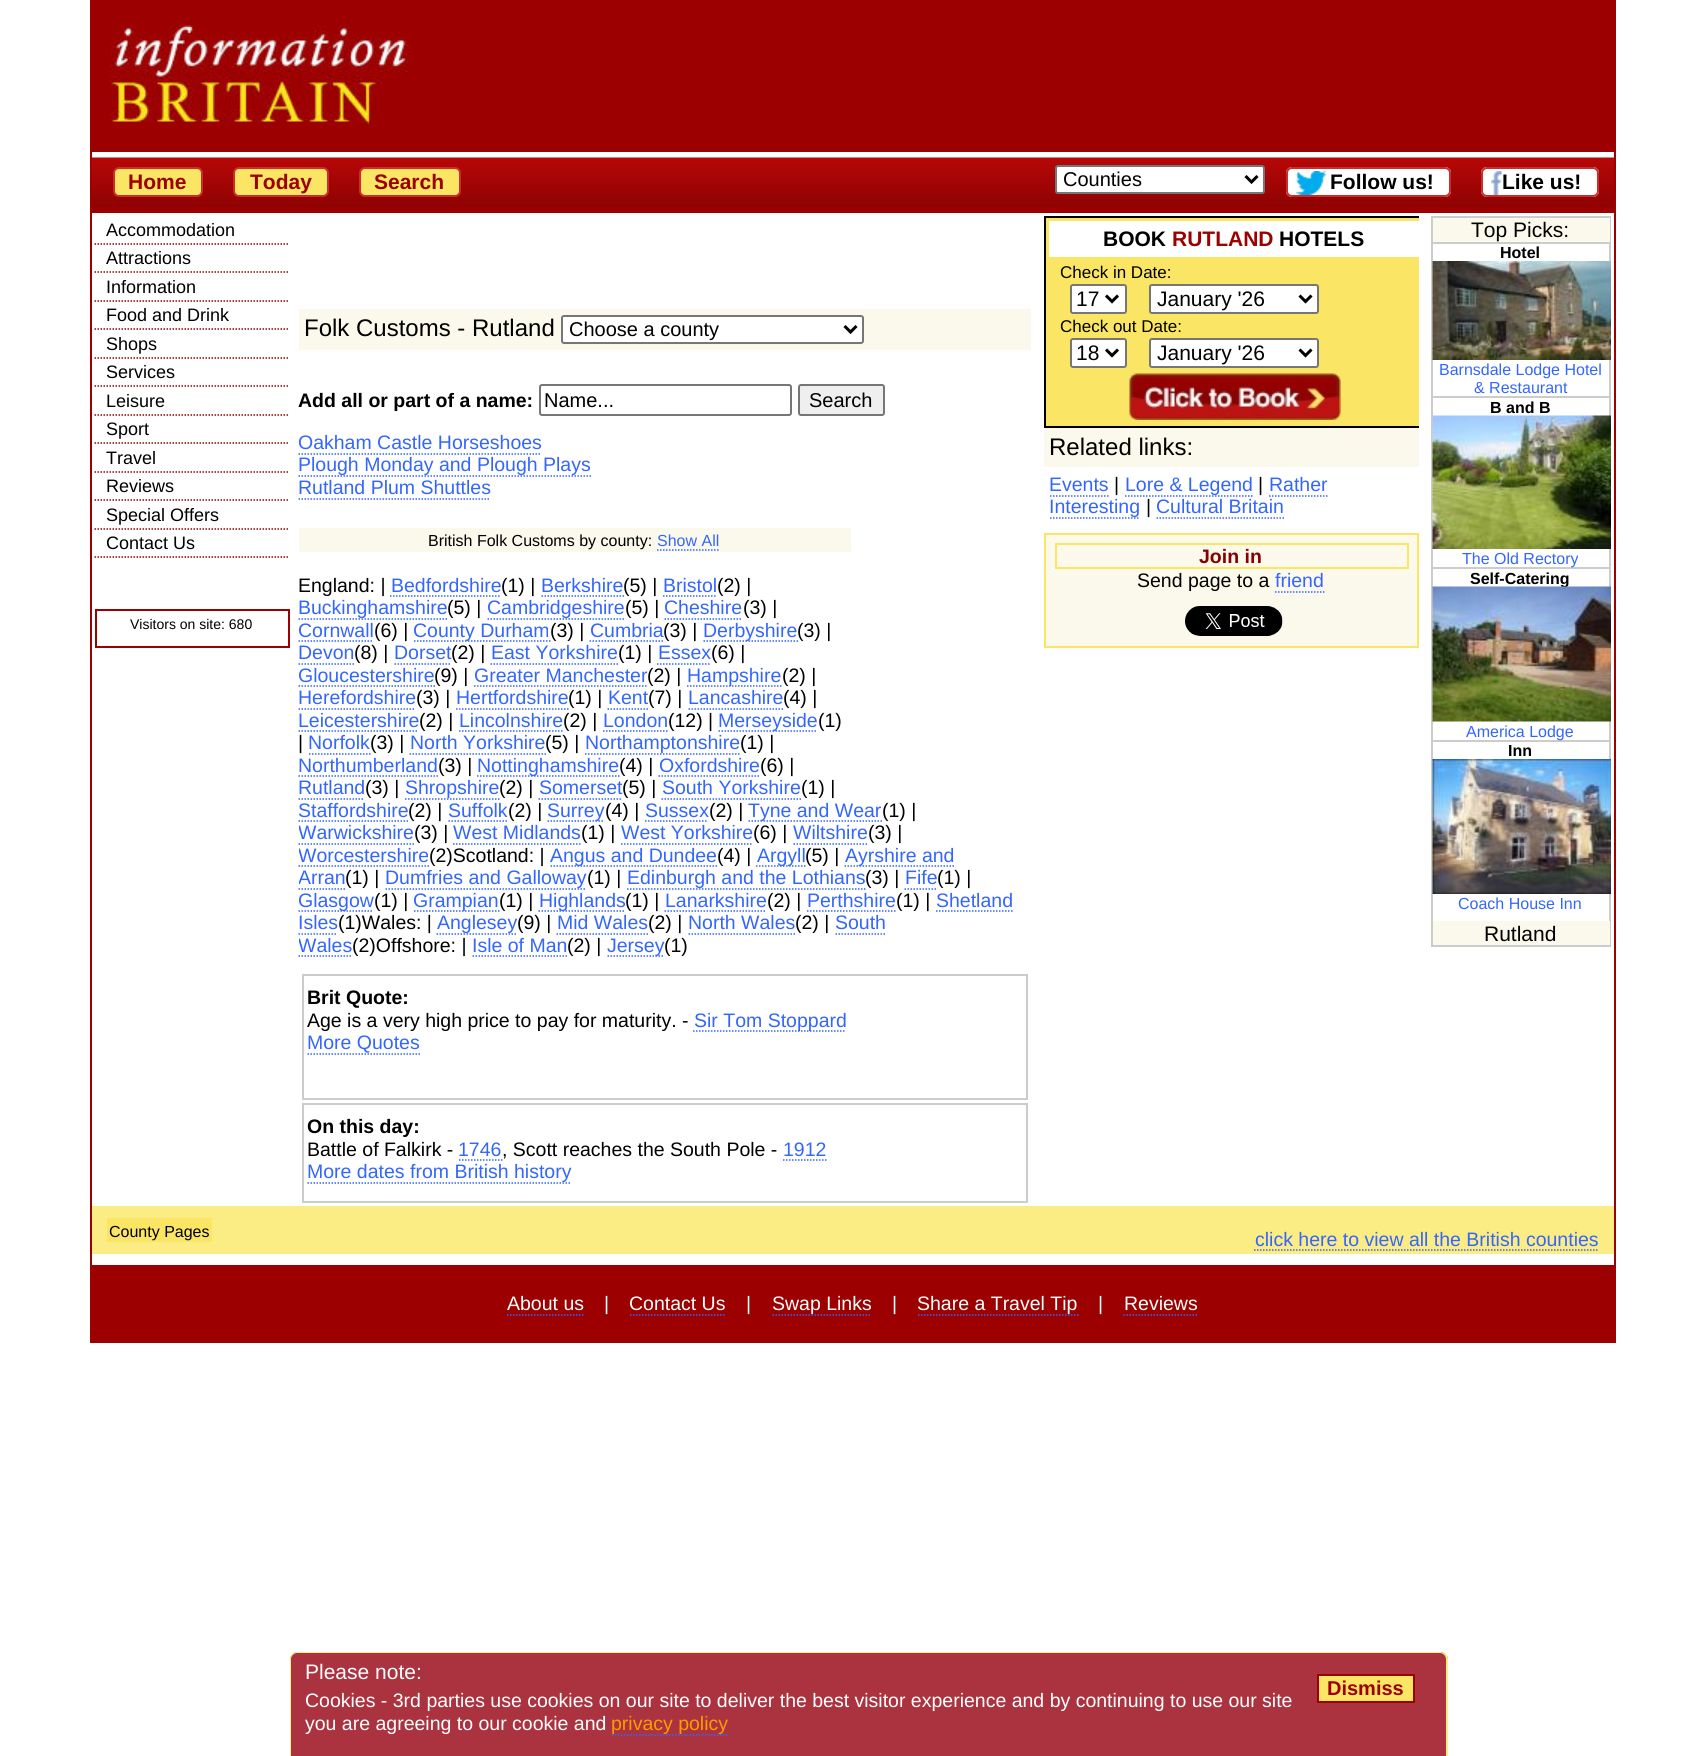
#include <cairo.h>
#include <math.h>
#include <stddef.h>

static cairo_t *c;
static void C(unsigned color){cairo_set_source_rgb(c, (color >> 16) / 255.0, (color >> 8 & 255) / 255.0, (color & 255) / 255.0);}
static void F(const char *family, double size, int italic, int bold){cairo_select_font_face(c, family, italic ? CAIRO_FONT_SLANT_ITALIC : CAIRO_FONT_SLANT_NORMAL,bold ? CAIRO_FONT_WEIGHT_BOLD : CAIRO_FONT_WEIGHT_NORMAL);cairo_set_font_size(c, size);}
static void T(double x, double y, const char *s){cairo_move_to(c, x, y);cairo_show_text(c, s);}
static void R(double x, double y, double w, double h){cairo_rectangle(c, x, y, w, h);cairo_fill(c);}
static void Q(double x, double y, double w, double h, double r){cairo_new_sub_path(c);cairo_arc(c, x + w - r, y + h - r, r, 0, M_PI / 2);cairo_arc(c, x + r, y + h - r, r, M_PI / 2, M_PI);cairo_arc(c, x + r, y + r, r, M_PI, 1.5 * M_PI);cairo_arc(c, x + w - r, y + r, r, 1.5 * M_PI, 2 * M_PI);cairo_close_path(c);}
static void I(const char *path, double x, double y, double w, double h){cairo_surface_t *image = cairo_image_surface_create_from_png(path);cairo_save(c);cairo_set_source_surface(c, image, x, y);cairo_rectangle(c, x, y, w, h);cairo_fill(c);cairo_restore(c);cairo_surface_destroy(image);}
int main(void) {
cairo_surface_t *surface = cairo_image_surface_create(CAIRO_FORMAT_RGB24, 1703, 1756);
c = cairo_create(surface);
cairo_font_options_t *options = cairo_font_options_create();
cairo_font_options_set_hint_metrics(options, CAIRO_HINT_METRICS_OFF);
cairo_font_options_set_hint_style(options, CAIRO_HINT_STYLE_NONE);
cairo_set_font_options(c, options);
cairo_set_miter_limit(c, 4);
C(0xffffff);
cairo_paint(c);
cairo_rectangle(c,91,1,1524,1341);
C(0x9c0000);
cairo_stroke(c);
R(92,2,1522,150);
I("1.png",109,25,301,102);
R(92,207,1522,6);
I("2.png",91,157,1523,50);
C(0xfae664);
Q(114,168,88,28,5);
cairo_fill_preserve(c);
C(0xc92d2d);
cairo_stroke(c);
F("Liberation Sans",21,0,1);
C(0x9c0000);
T(128,189,"Home");
C(0xfae664);
Q(234,168,94,28,5);
cairo_fill_preserve(c);
C(0xc92d2d);
cairo_stroke(c);
C(0x9c0000);
T(250,189,"Today");
C(0xfae664);
Q(360,168,100,28,5);
cairo_fill_preserve(c);
C(0xc92d2d);
cairo_stroke(c);
C(0x9c0000);
T(374,189,"Search");
C(0xffffff);
Q(1056,166,208,27,2);
cairo_fill_preserve(c);
C(0x767676);
cairo_stroke(c);
cairo_new_path(c);
cairo_move_to(c,1245.5,176);
cairo_line_to(c,1251.5,182);
cairo_line_to(c,1257.5,176);
C(0x000000);
cairo_set_line_width(c,3);
cairo_stroke(c);
F("Liberation Sans",20,0,0);
T(1063,186,"Counties");
C(0xffffff);
Q(1286,167,165,30,6);
cairo_fill(c);
I("3.png",1296,171,30,24);
Q(1287,168,163,28,5);
C(0xc92d2d);
cairo_set_line_width(c,2);
cairo_stroke(c);
F("Liberation Sans",21,0,1);
C(0x000000);
T(1330,189,"Follow us!");
C(0xffffff);
Q(1481,167,118,30,6);
cairo_fill(c);
I("4.png",1491,171,11,24);
Q(1482,168,116,28,5);
C(0xc92d2d);
cairo_stroke(c);
C(0x000000);
T(1502,189,"Like us!");
cairo_new_path(c);
cairo_move_to(c,94.5,244);
cairo_line_to(c,289.5,244);
C(0x9c0000);
cairo_set_line_width(c,1.5);
cairo_set_dash(c,(double[]){1.5,1.5},2,0);
cairo_stroke(c);
F("Liberation Sans",18,0,0);
C(0x000000);
T(106,236,"Accommodation");
cairo_new_path(c);
cairo_move_to(c,94.5,272);
cairo_line_to(c,289.5,272);
C(0x9c0000);
cairo_stroke(c);
C(0x000000);
T(106,264,"Attractions");
cairo_new_path(c);
cairo_move_to(c,94.5,301);
cairo_line_to(c,289.5,301);
C(0x9c0000);
cairo_stroke(c);
C(0x000000);
T(106,293,"Information");
cairo_new_path(c);
cairo_move_to(c,94.5,329);
cairo_line_to(c,289.5,329);
C(0x9c0000);
cairo_stroke(c);
C(0x000000);
T(106,321,"Food and Drink");
cairo_new_path(c);
cairo_move_to(c,94.5,358);
cairo_line_to(c,289.5,358);
C(0x9c0000);
cairo_stroke(c);
C(0x000000);
T(106,350,"Shops");
cairo_new_path(c);
cairo_move_to(c,94.5,386);
cairo_line_to(c,289.5,386);
C(0x9c0000);
cairo_stroke(c);
C(0x000000);
T(106,378,"Services");
cairo_new_path(c);
cairo_move_to(c,94.5,415);
cairo_line_to(c,289.5,415);
C(0x9c0000);
cairo_stroke(c);
C(0x000000);
T(106,407,"Leisure");
cairo_new_path(c);
cairo_move_to(c,94.5,443);
cairo_line_to(c,289.5,443);
C(0x9c0000);
cairo_stroke(c);
C(0x000000);
T(106,435,"Sport");
cairo_new_path(c);
cairo_move_to(c,94.5,472);
cairo_line_to(c,289.5,472);
C(0x9c0000);
cairo_stroke(c);
C(0x000000);
T(106,464,"Travel");
cairo_new_path(c);
cairo_move_to(c,94.5,500);
cairo_line_to(c,289.5,500);
C(0x9c0000);
cairo_stroke(c);
C(0x000000);
T(106,492,"Reviews");
cairo_new_path(c);
cairo_move_to(c,94.5,529);
cairo_line_to(c,289.5,529);
C(0x9c0000);
cairo_stroke(c);
C(0x000000);
T(106,521,"Special Offers");
cairo_new_path(c);
cairo_move_to(c,94.5,557);
cairo_line_to(c,289.5,557);
C(0x9c0000);
cairo_stroke(c);
C(0x000000);
T(106,549,"Contact Us");
cairo_rectangle(c,96,610,193,37);
C(0x9c0000);
cairo_set_line_width(c,2);
cairo_set_dash(c,NULL,0,0);
cairo_stroke(c);
F("Liberation Sans",14,0,0);
C(0x000000);
T(130,629,"Visitors on site: 680");
C(0xfaf9eb);
R(299,309,732,41);
F("Liberation Sans",24,0,0);
C(0x000000);
T(304,336,"Folk Customs - Rutland");
C(0xffffff);
Q(562,316,301,27,2);
cairo_fill_preserve(c);
C(0x767676);
cairo_stroke(c);
cairo_new_path(c);
cairo_move_to(c,844.5,326);
cairo_line_to(c,850.5,332);
cairo_line_to(c,856.5,326);
C(0x000000);
cairo_set_line_width(c,3);
cairo_stroke(c);
F("Liberation Sans",20,0,0);
T(569,336,"Choose a county");
F("Liberation Sans",19.5,0,1);
T(298,407,"Add all or part of a name:");
Q(540,385,251,30,2);
C(0x767676);
cairo_set_line_width(c,2);
cairo_stroke(c);
F("Liberation Sans",20,0,0);
C(0x000000);
T(544,407,"Name...");
C(0xefefef);
Q(799,385,85,30,2);
cairo_fill_preserve(c);
C(0x767676);
cairo_stroke(c);
C(0x000000);
T(809,407,"Search");
cairo_save(c);
cairo_rectangle(c,299,216,732,990);
cairo_clip(c);
F("Liberation Sans",19.5,0,0);
C(0x3366ff);
T(298,449,"Oakham Castle Horseshoes");
cairo_restore(c);
cairo_new_path(c);
cairo_move_to(c,298.5,454);
cairo_line_to(c,541.5,454);
C(0x3366ff);
cairo_set_line_width(c,1.5);
cairo_set_dash(c,(double[]){1.5,1.5},2,0);
cairo_stroke(c);
cairo_new_path(c);
cairo_move_to(c,298.5,476);
cairo_line_to(c,591,476);
cairo_stroke(c);
F("Liberation Sans",19.5,0,0);
T(298,471,"Plough Monday and Plough Plays");
T(298,494,"Rutland Plum Shuttles");
cairo_new_path(c);
cairo_move_to(c,298.5,499);
cairo_line_to(c,490.5,499);
cairo_stroke(c);
C(0xfaf9eb);
R(299,528,552,24);
F("Liberation Sans",16,0,0);
C(0x000000);
T(428,546,"British Folk Customs by county:");
C(0x3366ff);
T(657,546,"Show All");
cairo_new_path(c);
cairo_move_to(c,657,550);
cairo_line_to(c,718.5,550);
cairo_stroke(c);
F("Liberation Sans",19.5,0,0);
C(0x000000);
T(298,592,"England: |");
C(0x3366ff);
T(391,592,"Bedfordshire");
cairo_new_path(c);
cairo_move_to(c,390,596);
cairo_line_to(c,501,596);
cairo_stroke(c);
C(0x000000);
T(501,592,"(1) |");
C(0x3366ff);
T(541,592,"Berkshire");
cairo_new_path(c);
cairo_move_to(c,541.5,596);
cairo_line_to(c,624,596);
cairo_stroke(c);
C(0x000000);
T(623,592,"(5) |");
C(0x3366ff);
T(663,592,"Bristol");
cairo_new_path(c);
cairo_move_to(c,663,596);
cairo_line_to(c,717,596);
cairo_stroke(c);
C(0x000000);
T(717,592,"(2) |");
cairo_new_path(c);
cairo_move_to(c,298.5,619);
cairo_line_to(c,447,619);
C(0x3366ff);
cairo_stroke(c);
T(298,614,"Buckinghamshire");
C(0x000000);
T(447,614,"(5) |");
cairo_new_path(c);
cairo_move_to(c,487.5,619);
cairo_line_to(c,624,619);
C(0x3366ff);
cairo_stroke(c);
T(487,614,"Cambridgeshire");
C(0x000000);
T(625,614,"(5) |");
C(0x3366ff);
T(664,614,"Cheshire");
cairo_new_path(c);
cairo_move_to(c,664.5,619);
cairo_line_to(c,742.5,619);
cairo_stroke(c);
C(0x000000);
T(743,614,"(3) |");
cairo_save(c);
cairo_rectangle(c,299,216,732,990);
cairo_clip(c);
C(0x3366ff);
T(298,637,"Cornwall");
cairo_restore(c);
cairo_new_path(c);
cairo_move_to(c,298.5,641);
cairo_line_to(c,373.5,641);
C(0x3366ff);
cairo_stroke(c);
C(0x000000);
T(374,637,"(6) |");
cairo_new_path(c);
cairo_move_to(c,414,641);
cairo_line_to(c,550.5,641);
C(0x3366ff);
cairo_stroke(c);
T(413,637,"County Durham");
C(0x000000);
T(550,637,"(3) |");
C(0x3366ff);
T(590,637,"Cumbria");
cairo_new_path(c);
cairo_move_to(c,589.5,641);
cairo_line_to(c,663,641);
cairo_stroke(c);
C(0x000000);
T(663,637,"(3) |");
cairo_new_path(c);
cairo_move_to(c,703.5,641);
cairo_line_to(c,798,641);
C(0x3366ff);
cairo_stroke(c);
T(703,637,"Derbyshire");
C(0x000000);
T(797,637,"(3) |");
C(0x3366ff);
T(298,659,"Devon");
cairo_new_path(c);
cairo_move_to(c,298.5,664);
cairo_line_to(c,354,664);
cairo_stroke(c);
C(0x000000);
T(354,659,"(8) |");
C(0x3366ff);
T(394,659,"Dorset");
cairo_new_path(c);
cairo_move_to(c,394.5,664);
cairo_line_to(c,451.5,664);
cairo_stroke(c);
C(0x000000);
T(451,659,"(2) |");
C(0x3366ff);
T(491,659,"East Yorkshire");
cairo_new_path(c);
cairo_move_to(c,490.5,664);
cairo_line_to(c,618,664);
cairo_stroke(c);
C(0x000000);
T(618,659,"(1) |");
C(0x3366ff);
T(658,659,"Essex");
cairo_new_path(c);
cairo_move_to(c,657,664);
cairo_line_to(c,711,664);
cairo_stroke(c);
C(0x000000);
T(711,659,"(6) |");
cairo_save(c);
cairo_rectangle(c,299,216,732,990);
cairo_clip(c);
C(0x3366ff);
T(298,682,"Gloucestershire");
cairo_restore(c);
cairo_new_path(c);
cairo_move_to(c,298.5,686);
cairo_line_to(c,435,686);
C(0x3366ff);
cairo_stroke(c);
C(0x000000);
T(434,682,"(9) |");
C(0x3366ff);
T(474,682,"Greater Manchester");
cairo_new_path(c);
cairo_move_to(c,474,686);
cairo_line_to(c,648,686);
cairo_stroke(c);
C(0x000000);
T(647,682,"(2) |");
cairo_new_path(c);
cairo_move_to(c,687,686);
cairo_line_to(c,781.5,686);
C(0x3366ff);
cairo_stroke(c);
T(687,682,"Hampshire");
C(0x000000);
T(782,682,"(2) |");
C(0x3366ff);
T(298,704,"Herefordshire");
cairo_new_path(c);
cairo_move_to(c,298.5,709);
cairo_line_to(c,415.5,709);
cairo_stroke(c);
C(0x000000);
T(416,704,"(3) |");
C(0x3366ff);
T(456,704,"Hertfordshire");
cairo_new_path(c);
cairo_move_to(c,456,709);
cairo_line_to(c,568.5,709);
cairo_stroke(c);
C(0x000000);
T(568,704,"(1) |");
C(0x3366ff);
T(608,704,"Kent");
cairo_new_path(c);
cairo_move_to(c,607.5,709);
cairo_line_to(c,648,709);
cairo_stroke(c);
C(0x000000);
T(648,704,"(7) |");
C(0x3366ff);
T(688,704,"Lancashire");
cairo_new_path(c);
cairo_move_to(c,688.5,709);
cairo_line_to(c,783,709);
cairo_stroke(c);
C(0x000000);
T(783,704,"(4) |");
C(0x3366ff);
T(298,727,"Leicestershire");
cairo_new_path(c);
cairo_move_to(c,298.5,731);
cairo_line_to(c,418.5,731);
cairo_stroke(c);
C(0x000000);
T(419,727,"(2) |");
C(0x3366ff);
T(459,727,"Lincolnshire");
cairo_new_path(c);
cairo_move_to(c,459,731);
cairo_line_to(c,562.5,731);
cairo_stroke(c);
C(0x000000);
T(563,727,"(2) |");
C(0x3366ff);
T(603,727,"London");
cairo_new_path(c);
cairo_move_to(c,603,731);
cairo_line_to(c,667.5,731);
cairo_stroke(c);
C(0x000000);
T(668,727,"(12) |");
cairo_new_path(c);
cairo_move_to(c,718.5,731);
cairo_line_to(c,817.5,731);
C(0x3366ff);
cairo_stroke(c);
T(718,727,"Merseyside");
C(0x000000);
T(818,727,"(1)");
T(298,749,"|");
C(0x3366ff);
T(308,749,"Norfolk");
cairo_new_path(c);
cairo_move_to(c,309,754);
cairo_line_to(c,370.5,754);
cairo_stroke(c);
C(0x000000);
T(370,749,"(3) |");
C(0x3366ff);
T(410,749,"North Yorkshire");
cairo_new_path(c);
cairo_move_to(c,409.5,754);
cairo_line_to(c,546,754);
cairo_stroke(c);
C(0x000000);
T(545,749,"(5) |");
cairo_new_path(c);
cairo_move_to(c,585,754);
cairo_line_to(c,739.5,754);
C(0x3366ff);
cairo_stroke(c);
T(585,749,"Northamptonshire");
C(0x000000);
T(740,749,"(1) |");
C(0x3366ff);
T(298,772,"Northumberland");
cairo_new_path(c);
cairo_move_to(c,298.5,776);
cairo_line_to(c,438,776);
cairo_stroke(c);
C(0x000000);
T(438,772,"(3) |");
cairo_new_path(c);
cairo_move_to(c,477,776);
cairo_line_to(c,619.5,776);
C(0x3366ff);
cairo_stroke(c);
T(477,772,"Nottinghamshire");
C(0x000000);
T(619,772,"(4) |");
C(0x3366ff);
T(659,772,"Oxfordshire");
cairo_new_path(c);
cairo_move_to(c,658.5,776);
cairo_line_to(c,760.5,776);
cairo_stroke(c);
C(0x000000);
T(760,772,"(6) |");
C(0x3366ff);
T(298,794,"Rutland");
cairo_new_path(c);
cairo_move_to(c,298.5,799);
cairo_line_to(c,364.5,799);
cairo_stroke(c);
C(0x000000);
T(365,794,"(3) |");
cairo_new_path(c);
cairo_move_to(c,405,799);
cairo_line_to(c,499.5,799);
C(0x3366ff);
cairo_stroke(c);
T(405,794,"Shropshire");
C(0x000000);
T(499,794,"(2) |");
C(0x3366ff);
T(539,794,"Somerset");
cairo_new_path(c);
cairo_move_to(c,538.5,799);
cairo_line_to(c,622.5,799);
cairo_stroke(c);
C(0x000000);
T(622,794,"(5) |");
C(0x3366ff);
T(662,794,"South Yorkshire");
cairo_new_path(c);
cairo_move_to(c,661.5,799);
cairo_line_to(c,801,799);
cairo_stroke(c);
C(0x000000);
T(801,794,"(1) |");
C(0x3366ff);
T(298,817,"Staffordshire");
cairo_new_path(c);
cairo_move_to(c,298.5,821);
cairo_line_to(c,408,821);
cairo_stroke(c);
C(0x000000);
T(408,817,"(2) |");
C(0x3366ff);
T(448,817,"Suffolk");
cairo_new_path(c);
cairo_move_to(c,448.5,821);
cairo_line_to(c,507,821);
cairo_stroke(c);
C(0x000000);
T(508,817,"(2) |");
cairo_new_path(c);
cairo_move_to(c,547.5,821);
cairo_line_to(c,604.5,821);
C(0x3366ff);
cairo_stroke(c);
T(547,817,"Surrey");
C(0x000000);
T(605,817,"(4) |");
C(0x3366ff);
T(645,817,"Sussex");
cairo_new_path(c);
cairo_move_to(c,645,821);
cairo_line_to(c,708,821);
cairo_stroke(c);
C(0x000000);
T(709,817,"(2) |");
cairo_new_path(c);
cairo_move_to(c,748.5,821);
cairo_line_to(c,882,821);
C(0x3366ff);
cairo_stroke(c);
T(748,817,"Tyne and Wear");
C(0x000000);
T(882,817,"(1) |");
cairo_save(c);
cairo_rectangle(c,299,216,732,990);
cairo_clip(c);
C(0x3366ff);
T(298,839,"Warwickshire");
cairo_restore(c);
cairo_new_path(c);
cairo_move_to(c,298.5,844);
cairo_line_to(c,414,844);
C(0x3366ff);
cairo_stroke(c);
C(0x000000);
T(414,839,"(3) |");
C(0x3366ff);
T(453,839,"West Midlands");
cairo_new_path(c);
cairo_move_to(c,453,844);
cairo_line_to(c,582,844);
cairo_stroke(c);
C(0x000000);
T(581,839,"(1) |");
C(0x3366ff);
T(621,839,"West Yorkshire");
cairo_new_path(c);
cairo_move_to(c,621,844);
cairo_line_to(c,753,844);
cairo_stroke(c);
C(0x000000);
T(753,839,"(6) |");
C(0x3366ff);
T(793,839,"Wiltshire");
cairo_new_path(c);
cairo_move_to(c,793.5,844);
cairo_line_to(c,868.5,844);
cairo_stroke(c);
C(0x000000);
T(868,839,"(3) |");
cairo_save(c);
cairo_rectangle(c,299,216,732,990);
cairo_clip(c);
C(0x3366ff);
T(298,862,"Worcestershire");
cairo_restore(c);
cairo_new_path(c);
cairo_move_to(c,298.5,866);
cairo_line_to(c,429,866);
C(0x3366ff);
cairo_stroke(c);
C(0x000000);
T(429,862,"(2)Scotland: |");
cairo_new_path(c);
cairo_move_to(c,550.5,866);
cairo_line_to(c,717,866);
C(0x3366ff);
cairo_stroke(c);
T(550,862,"Angus and Dundee");
C(0x000000);
T(717,862,"(4) |");
cairo_new_path(c);
cairo_move_to(c,756,866);
cairo_line_to(c,805.5,866);
C(0x3366ff);
cairo_stroke(c);
T(757,862,"Argyll");
C(0x000000);
T(805,862,"(5) |");
cairo_new_path(c);
cairo_move_to(c,844.5,866);
cairo_line_to(c,954,866);
C(0x3366ff);
cairo_stroke(c);
T(845,862,"Ayrshire and");
cairo_save(c);
cairo_rectangle(c,299,216,732,990);
cairo_clip(c);
T(298,884,"Arran");
cairo_restore(c);
cairo_new_path(c);
cairo_move_to(c,298.5,889);
cairo_line_to(c,345,889);
cairo_stroke(c);
C(0x000000);
T(345,884,"(1) |");
cairo_new_path(c);
cairo_move_to(c,385.5,889);
cairo_line_to(c,586.5,889);
C(0x3366ff);
cairo_stroke(c);
T(385,884,"Dumfries and Galloway");
C(0x000000);
T(587,884,"(1) |");
cairo_new_path(c);
cairo_move_to(c,627,889);
cairo_line_to(c,865.5,889);
C(0x3366ff);
cairo_stroke(c);
T(627,884,"Edinburgh and the Lothians");
C(0x000000);
T(865,884,"(3) |");
C(0x3366ff);
T(905,884,"Fife");
cairo_new_path(c);
cairo_move_to(c,904.5,889);
cairo_line_to(c,937.5,889);
cairo_stroke(c);
C(0x000000);
T(937,884,"(1) |");
cairo_new_path(c);
cairo_move_to(c,298.5,911);
cairo_line_to(c,373.5,911);
C(0x3366ff);
cairo_stroke(c);
cairo_save(c);
cairo_rectangle(c,299,216,732,990);
cairo_clip(c);
T(298,907,"Glasgow");
cairo_restore(c);
C(0x000000);
T(374,907,"(1) |");
cairo_new_path(c);
cairo_move_to(c,414,911);
cairo_line_to(c,499.5,911);
C(0x3366ff);
cairo_stroke(c);
T(413,907,"Grampian");
C(0x000000);
T(499,907,"(1) |");
cairo_new_path(c);
cairo_move_to(c,538.5,911);
cairo_line_to(c,625.5,911);
C(0x3366ff);
cairo_stroke(c);
T(539,907,"Highlands");
C(0x000000);
T(625,907,"(1) |");
C(0x3366ff);
T(665,907,"Lanarkshire");
cairo_new_path(c);
cairo_move_to(c,664.5,911);
cairo_line_to(c,766.5,911);
cairo_stroke(c);
C(0x000000);
T(767,907,"(2) |");
C(0x3366ff);
T(807,907,"Perthshire");
cairo_new_path(c);
cairo_move_to(c,807,911);
cairo_line_to(c,895.5,911);
cairo_stroke(c);
C(0x000000);
T(896,907,"(1) |");
C(0x3366ff);
T(936,907,"Shetland");
cairo_new_path(c);
cairo_move_to(c,936,911);
cairo_line_to(c,1012.5,911);
cairo_stroke(c);
T(298,929,"Isles");
cairo_new_path(c);
cairo_move_to(c,298.5,934);
cairo_line_to(c,337.5,934);
cairo_stroke(c);
C(0x000000);
T(338,929,"(1)Wales: |");
cairo_new_path(c);
cairo_move_to(c,436.5,934);
cairo_line_to(c,517.5,934);
C(0x3366ff);
cairo_stroke(c);
T(437,929,"Anglesey");
C(0x000000);
T(517,929,"(9) |");
C(0x3366ff);
T(557,929,"Mid Wales");
cairo_new_path(c);
cairo_move_to(c,556.5,934);
cairo_line_to(c,648,934);
cairo_stroke(c);
C(0x000000);
T(648,929,"(2) |");
C(0x3366ff);
T(688,929,"North Wales");
cairo_new_path(c);
cairo_move_to(c,688.5,934);
cairo_line_to(c,795,934);
cairo_stroke(c);
C(0x000000);
T(795,929,"(2) |");
C(0x3366ff);
T(835,929,"South");
cairo_new_path(c);
cairo_move_to(c,835.5,934);
cairo_line_to(c,886.5,934);
cairo_stroke(c);
cairo_save(c);
cairo_rectangle(c,299,216,732,990);
cairo_clip(c);
T(298,952,"Wales");
cairo_restore(c);
cairo_new_path(c);
cairo_move_to(c,298.5,956);
cairo_line_to(c,352.5,956);
cairo_stroke(c);
C(0x000000);
T(352,952,"(2)Offshore: |");
C(0x3366ff);
T(472,952,"Isle of Man");
cairo_new_path(c);
cairo_move_to(c,472.5,956);
cairo_line_to(c,567,956);
cairo_stroke(c);
C(0x000000);
T(567,952,"(2) |");
cairo_new_path(c);
cairo_move_to(c,607.5,956);
cairo_line_to(c,664.5,956);
C(0x3366ff);
cairo_stroke(c);
T(607,952,"Jersey");
C(0x000000);
T(664,952,"(1)");
cairo_rectangle(c,303,975,724,124);
C(0xcccccc);
cairo_set_line_width(c,2);
cairo_set_dash(c,NULL,0,0);
cairo_stroke(c);
F("Liberation Sans",19.5,0,1);
C(0x000000);
T(307,1004,"Brit Quote:");
F("Liberation Sans",19.5,0,0);
T(307,1027,"Age is a very high price to pay for maturity. -");
cairo_new_path(c);
cairo_move_to(c,693,1031);
cairo_line_to(c,846,1031);
C(0x3366ff);
cairo_set_line_width(c,1.5);
cairo_set_dash(c,(double[]){1.5,1.5},2,0);
cairo_stroke(c);
T(694,1027,"Sir Tom Stoppard");
T(307,1049,"More Quotes");
cairo_new_path(c);
cairo_move_to(c,307.5,1054);
cairo_line_to(c,420,1054);
cairo_stroke(c);
cairo_rectangle(c,303,1104,724,98);
C(0xcccccc);
cairo_set_line_width(c,2);
cairo_set_dash(c,NULL,0,0);
cairo_stroke(c);
F("Liberation Sans",19.5,0,1);
C(0x000000);
T(307,1133,"On this day:");
F("Liberation Sans",19.5,0,0);
T(307,1156,"Battle of Falkirk -");
C(0x3366ff);
T(458,1156,"1746");
cairo_new_path(c);
cairo_move_to(c,459,1160);
cairo_line_to(c,502.5,1160);
cairo_set_line_width(c,1.5);
cairo_set_dash(c,(double[]){1.5,1.5},2,0);
cairo_stroke(c);
C(0x000000);
T(502,1156,", Scott reaches the South Pole -");
C(0x3366ff);
T(783,1156,"1912");
cairo_new_path(c);
cairo_move_to(c,783,1160);
cairo_line_to(c,826.5,1160);
cairo_stroke(c);
cairo_new_path(c);
cairo_move_to(c,307.5,1183);
cairo_line_to(c,571.5,1183);
cairo_stroke(c);
T(307,1178,"More dates from British history");
C(0xfae664);
R(1046,218,373,208);
cairo_save(c);
cairo_rectangle(c,1044,216,375,447);
cairo_clip(c);
cairo_rectangle(c,1045,217,379,210);
C(0x000000);
cairo_set_line_width(c,2);
cairo_set_dash(c,NULL,0,0);
cairo_stroke(c);
cairo_restore(c);
C(0xffffff);
R(1049,221,370,36);
F("Liberation Sans",21,0,1);
C(0x000000);
T(1103,246,"BOOK");
C(0x9c0000);
T(1172,246,"RUTLAND");
C(0x000000);
T(1279,246,"HOTELS");
F("Liberation Sans",17,0,0);
T(1060,278,"Check in Date:");
C(0xffffff);
Q(1071,285,55,28,2);
cairo_fill_preserve(c);
C(0x767676);
cairo_set_line_width(c,2);
cairo_set_dash(c,NULL,0,0);
cairo_stroke(c);
cairo_new_path(c);
cairo_move_to(c,1106,295.5);
cairo_line_to(c,1112,301.5);
cairo_line_to(c,1118,295.5);
C(0x000000);
cairo_set_line_width(c,3);
cairo_stroke(c);
F("Liberation Sans",21,0,0);
T(1076,306,"17");
C(0xffffff);
Q(1150,285,168,28,2);
cairo_fill_preserve(c);
C(0x767676);
cairo_set_line_width(c,2);
cairo_stroke(c);
cairo_new_path(c);
cairo_move_to(c,1299.5,295.5);
cairo_line_to(c,1305.5,301.5);
cairo_line_to(c,1311.5,295.5);
C(0x000000);
cairo_set_line_width(c,3);
cairo_stroke(c);
T(1157,306,"January '26");
F("Liberation Sans",17,0,0);
T(1060,332,"Check out Date:");
C(0xffffff);
Q(1071,339,55,28,2);
cairo_fill_preserve(c);
C(0x767676);
cairo_set_line_width(c,2);
cairo_stroke(c);
cairo_new_path(c);
cairo_move_to(c,1106,349.5);
cairo_line_to(c,1112,355.5);
cairo_line_to(c,1118,349.5);
C(0x000000);
cairo_set_line_width(c,3);
cairo_stroke(c);
F("Liberation Sans",21,0,0);
T(1076,360,"18");
C(0xffffff);
Q(1150,339,168,28,2);
cairo_fill_preserve(c);
C(0x767676);
cairo_set_line_width(c,2);
cairo_stroke(c);
cairo_new_path(c);
cairo_move_to(c,1299.5,349.5);
cairo_line_to(c,1305.5,355.5);
cairo_line_to(c,1311.5,349.5);
C(0x000000);
cairo_set_line_width(c,3);
cairo_stroke(c);
T(1157,360,"January '26");
I("5.png",1129,373,212,47);
C(0xfaf9eb);
R(1044,428,375,39);
F("Liberation Sans",24,0,0);
C(0x000000);
T(1049,455,"Related links:");
F("Liberation Sans",19.5,0,0);
C(0x3366ff);
T(1049,491,"Events");
cairo_new_path(c);
cairo_move_to(c,1050,496);
cairo_line_to(c,1108.5,496);
cairo_set_line_width(c,1.5);
cairo_set_dash(c,(double[]){1.5,1.5},2,0);
cairo_stroke(c);
C(0x000000);
T(1114,491,"|");
cairo_new_path(c);
cairo_move_to(c,1125,496);
cairo_line_to(c,1252.5,496);
C(0x3366ff);
cairo_stroke(c);
T(1125,491,"Lore & Legend");
C(0x000000);
T(1258,491,"|");
C(0x3366ff);
T(1269,491,"Rather");
cairo_new_path(c);
cairo_move_to(c,1269,496);
cairo_line_to(c,1327.5,496);
cairo_stroke(c);
cairo_new_path(c);
cairo_move_to(c,1050,518);
cairo_line_to(c,1140,518);
cairo_stroke(c);
T(1049,513,"Interesting");
C(0x000000);
T(1146,513,"|");
C(0x3366ff);
T(1156,513,"Cultural Britain");
cairo_new_path(c);
cairo_move_to(c,1156.5,518);
cairo_line_to(c,1284,518);
cairo_stroke(c);
C(0xfaf9eb);
cairo_rectangle(c,1045,534,373,113);
cairo_fill_preserve(c);
C(0xfae664);
cairo_set_line_width(c,2);
cairo_set_dash(c,NULL,0,0);
cairo_stroke(c);
cairo_rectangle(c,1056,544,352,24);
cairo_stroke(c);
F("Liberation Sans",19.5,0,1);
C(0x870000);
T(1199,563,"Join in");
F("Liberation Sans",19.5,0,0);
C(0x000000);
T(1137,587,"Send page to a");
C(0x3366ff);
T(1275,587,"friend");
cairo_new_path(c);
cairo_move_to(c,1275,592);
cairo_line_to(c,1324.5,592);
cairo_set_line_width(c,1.5);
cairo_set_dash(c,(double[]){1.5,1.5},2,0);
cairo_stroke(c);
I("6.png",1185,606,98,30);
cairo_rectangle(c,1432,217,178,729);
C(0xcccccc);
cairo_set_line_width(c,2);
cairo_set_dash(c,NULL,0,0);
cairo_stroke(c);
C(0xfaf9eb);
R(1433,218,177,24);
F("Liberation Sans",21,0,0);
C(0x000000);
T(1471,237,"Top Picks:");
C(0xcccccc);
R(1433,242,177,2);
F("Liberation Sans",16,0,1);
C(0x000000);
T(1500,258,"Hotel");
I("7.png",1432,261,179,99);
F("Liberation Sans",16,0,0);
C(0x3366ff);
T(1439,375,"Barnsdale Lodge Hotel");
T(1474,393,"& Restaurant");
C(0xcccccc);
R(1433,396,177,2);
F("Liberation Sans",16,0,1);
C(0x000000);
T(1490,413,"B and B");
I("8.png",1432,415,179,134);
C(0xcccccc);
R(1433,567,177,2);
F("Liberation Sans",16,0,0);
C(0x3366ff);
T(1462,564,"The Old Rectory");
F("Liberation Sans",16,0,1);
C(0x000000);
T(1470,584,"Self-Catering");
I("9.png",1432,586,179,136);
C(0xcccccc);
R(1433,740,177,2);
F("Liberation Sans",16,0,0);
C(0x3366ff);
T(1466,737,"America Lodge");
F("Liberation Sans",16,0,1);
C(0x000000);
T(1508,756,"Inn");
I("10.png",1432,759,179,135);
F("Liberation Sans",16,0,0);
C(0x3366ff);
T(1458,909,"Coach House Inn");
C(0xfaf9eb);
R(1433,921,177,24);
F("Liberation Sans",21,0,0);
C(0x000000);
T(1484,941,"Rutland");
C(0xfbec84);
R(92,1206,1522,48);
C(0xfae664);
R(107,1218,105,24);
F("Liberation Sans",16,0,0);
C(0x000000);
T(109,1237,"County Pages");
F("Liberation Sans",19.5,0,0);
C(0x3366ff);
T(1255,1246,"click here to view all the British counties");
cairo_new_path(c);
cairo_move_to(c,1254,1250);
cairo_line_to(c,1599,1250);
cairo_set_line_width(c,1.5);
cairo_set_dash(c,(double[]){1.5,1.5},2,0);
cairo_stroke(c);
C(0x9c0000);
R(92,1265,1522,76);
C(0xffffff);
T(507,1310,"About us");
cairo_new_path(c);
cairo_move_to(c,507,1315);
cairo_line_to(c,583.5,1315);
C(0x3366ff);
cairo_stroke(c);
C(0xffffff);
T(604,1310,"|");
T(629,1310,"Contact Us");
cairo_new_path(c);
cairo_move_to(c,630,1315);
cairo_line_to(c,726,1315);
C(0x3366ff);
cairo_stroke(c);
C(0xffffff);
T(746,1310,"|");
cairo_new_path(c);
cairo_move_to(c,772.5,1315);
cairo_line_to(c,871.5,1315);
C(0x3366ff);
cairo_stroke(c);
C(0xffffff);
T(772,1310,"Swap Links");
T(892,1310,"|");
cairo_new_path(c);
cairo_move_to(c,918,1315);
cairo_line_to(c,1078.5,1315);
C(0x3366ff);
cairo_stroke(c);
C(0xffffff);
T(917,1310,"Share a Travel Tip");
T(1098,1310,"|");
T(1124,1310,"Reviews");
cairo_new_path(c);
cairo_move_to(c,1123.5,1315);
cairo_line_to(c,1197,1315);
C(0x3366ff);
cairo_stroke(c);
C(0xaa333f);
cairo_new_path(c);
cairo_move_to(c,298,1652);
cairo_line_to(c,1440,1652);
cairo_curve_to(c,1444.5,1652,1448,1655.5,1448,1660);
cairo_line_to(c,1448,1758);
cairo_line_to(c,290,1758);
cairo_line_to(c,290,1660);
cairo_curve_to(c,290,1655.5,293.5,1652,298,1652);
cairo_close_path(c);
cairo_fill(c);
C(0xf6ef81);
cairo_set_fill_rule(c,CAIRO_FILL_RULE_EVEN_ODD);
cairo_new_path(c);
cairo_move_to(c,297,1652);
cairo_line_to(c,1440,1652);
cairo_curve_to(c,1444,1652,1448,1655,1448,1659);
cairo_line_to(c,1448,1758);
cairo_line_to(c,290,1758);
cairo_line_to(c,290,1659);
cairo_curve_to(c,290,1655,293,1652,297,1652);
cairo_close_path(c);
cairo_move_to(c,297,1653);
cairo_line_to(c,1440,1653);
cairo_curve_to(c,1443,1653,1446,1656,1446,1659);
cairo_line_to(c,1446,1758);
cairo_line_to(c,291,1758);
cairo_line_to(c,291,1659);
cairo_curve_to(c,291,1656,294,1653,297,1653);
cairo_close_path(c);
cairo_fill(c);
F("Liberation Sans",21,0,0);
C(0xffffff);
T(305,1679,"Please note:");
C(0xfae664);
cairo_rectangle(c,1318,1675,96,27);
cairo_fill_preserve(c);
C(0x9c0000);
cairo_set_line_width(c,2);
cairo_set_dash(c,NULL,0,0);
cairo_stroke(c);
F("Liberation Sans",20,0,1);
T(1327,1695,"Dismiss");
F("Liberation Sans",19.5,0,0);
C(0xffffff);
T(305,1707,"Cookies - 3rd parties use cookies on our site to deliver the best visitor experience and by continuing to use our site");
T(305,1730,"you are agreeing to our cookie and");
cairo_new_path(c);
cairo_move_to(c,612,1735);
cairo_line_to(c,729,1735);
C(0x3366ff);
cairo_set_line_width(c,1.5);
cairo_set_dash(c,(double[]){1.5,1.5},2,0);
cairo_stroke(c);
C(0xff9900);
T(611,1730,"privacy policy");
cairo_surface_write_to_png(surface, "o.png");
cairo_font_options_destroy(options);
cairo_destroy(c);
cairo_surface_destroy(surface);
return 0;
}
